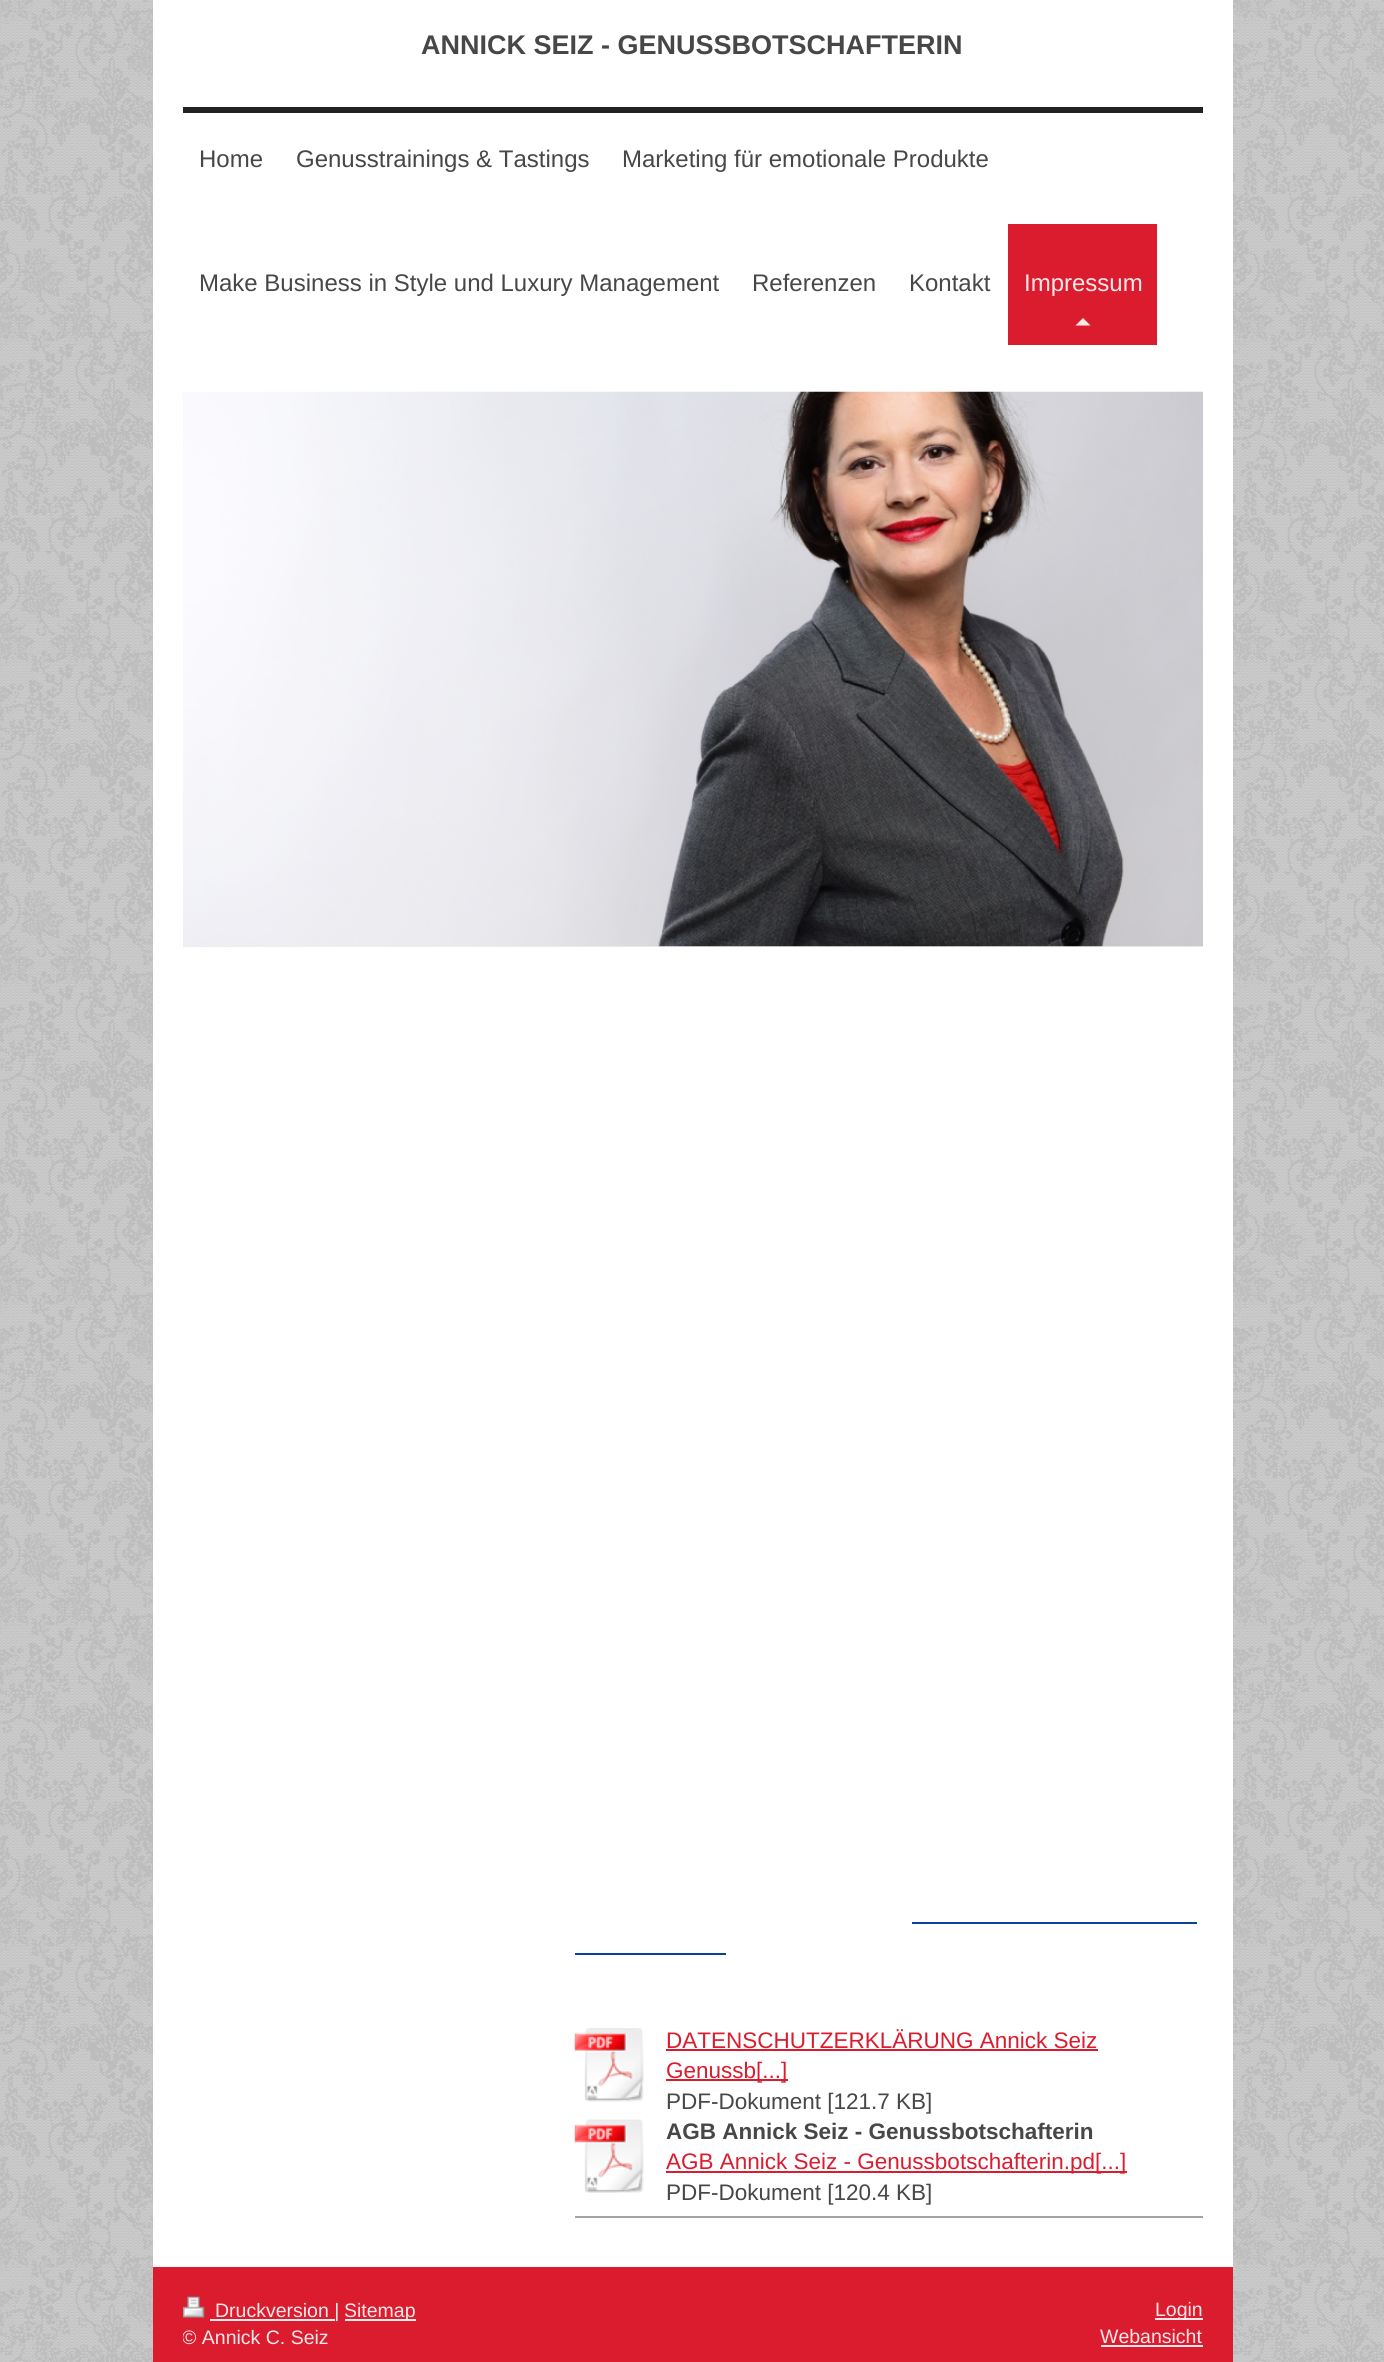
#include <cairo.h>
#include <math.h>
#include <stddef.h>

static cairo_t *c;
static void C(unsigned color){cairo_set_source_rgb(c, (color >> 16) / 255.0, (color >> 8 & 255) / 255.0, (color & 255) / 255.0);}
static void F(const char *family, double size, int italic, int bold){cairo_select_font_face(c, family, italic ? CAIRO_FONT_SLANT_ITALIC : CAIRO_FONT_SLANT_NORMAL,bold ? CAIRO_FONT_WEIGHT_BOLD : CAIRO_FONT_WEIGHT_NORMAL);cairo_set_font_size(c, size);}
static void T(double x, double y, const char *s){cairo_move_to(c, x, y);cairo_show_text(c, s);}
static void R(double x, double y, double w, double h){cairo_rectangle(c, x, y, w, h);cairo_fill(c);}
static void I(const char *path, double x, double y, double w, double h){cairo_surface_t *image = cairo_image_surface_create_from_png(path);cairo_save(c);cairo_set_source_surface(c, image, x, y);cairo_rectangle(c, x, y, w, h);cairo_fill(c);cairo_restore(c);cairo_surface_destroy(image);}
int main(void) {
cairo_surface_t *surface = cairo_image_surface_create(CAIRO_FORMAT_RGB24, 1384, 2362);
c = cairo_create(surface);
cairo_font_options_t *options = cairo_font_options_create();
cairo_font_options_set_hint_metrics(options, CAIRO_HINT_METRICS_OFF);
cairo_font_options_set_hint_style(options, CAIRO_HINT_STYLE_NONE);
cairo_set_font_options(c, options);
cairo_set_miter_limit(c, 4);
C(0xffffff);
cairo_paint(c);
I("1.png",0,0,1384,2362);
C(0xffffff);
R(153,0,1080,2267);
F("Liberation Sans",27,0,1);
C(0x474747);
T(421,54,"ANNICK SEIZ - GENUSSBOTSCHAFTERIN");
C(0x222222);
R(183,107,1020,6);
F("Liberation Sans",24,0,0);
C(0x474747);
T(199,167,"Home");
T(296,167,"Genusstrainings & Tastings");
T(622,167,"Marketing für emotionale Produkte");
T(199,291,"Make Business in Style und Luxury Management");
T(752,291,"Referenzen");
T(909,291,"Kontakt");
C(0xdb1c2f);
R(1008,224,149,121);
C(0xfbe8ea);
T(1024,291,"Impressum");
cairo_new_path(c);
cairo_move_to(c,1090.5,325.5);
cairo_line_to(c,1075.5,325.5);
cairo_line_to(c,1083,318);
cairo_close_path(c);
cairo_fill(c);
C(0xeeeeee);
R(183,946,1020,1);
I("2.png",183,391,1020,556);
C(0x07429b);
R(912,1922,285,2);
R(575,1953,151,2);
I("3.png",574,2028,70,74);
F("Liberation Sans",22.5,0,0);
C(0xdb1c2f);
T(666,2048,"DATENSCHUTZERKLÄRUNG Annick Seiz");
R(666,2049,432,2);
R(666,2079,122,2);
T(666,2078,"Genussb[...]");
C(0x474747);
T(666,2109,"PDF-Dokument [121.7 KB]");
I("4.png",574,2119,70,74);
F("Liberation Sans",22.5,0,1);
T(666,2139,"AGB Annick Seiz - Genussbotschafterin");
C(0xdb1c2f);
R(666,2171,461,2);
F("Liberation Sans",22.5,0,0);
T(666,2169,"AGB Annick Seiz - Genussbotschafterin.pd[...]");
C(0x474747);
T(666,2200,"PDF-Dokument [120.4 KB]");
C(0xa3a3a3);
R(575,2216,628,2);
C(0xdb1c2f);
R(153,2267,1080,95);
I("5.png",183,2296,22,22);
C(0xfbe8ea);
R(210,2319,125,2);
F("Liberation Sans",19.5,0,0);
T(215,2317,"Druckversion |");
R(345,2319,71,2);
T(344,2317,"Sitemap");
cairo_save(c);
cairo_rectangle(c,183,2297,1020,55);
cairo_clip(c);
T(182,2344,"© Annick C. Seiz");
cairo_restore(c);
R(1155,2318,48,2);
T(1155,2316,"Login");
T(1100,2343,"Webansicht");
R(1101,2345,102,2);
cairo_surface_write_to_png(surface, "o.png");
cairo_font_options_destroy(options);
cairo_destroy(c);
cairo_surface_destroy(surface);
return 0;
}
